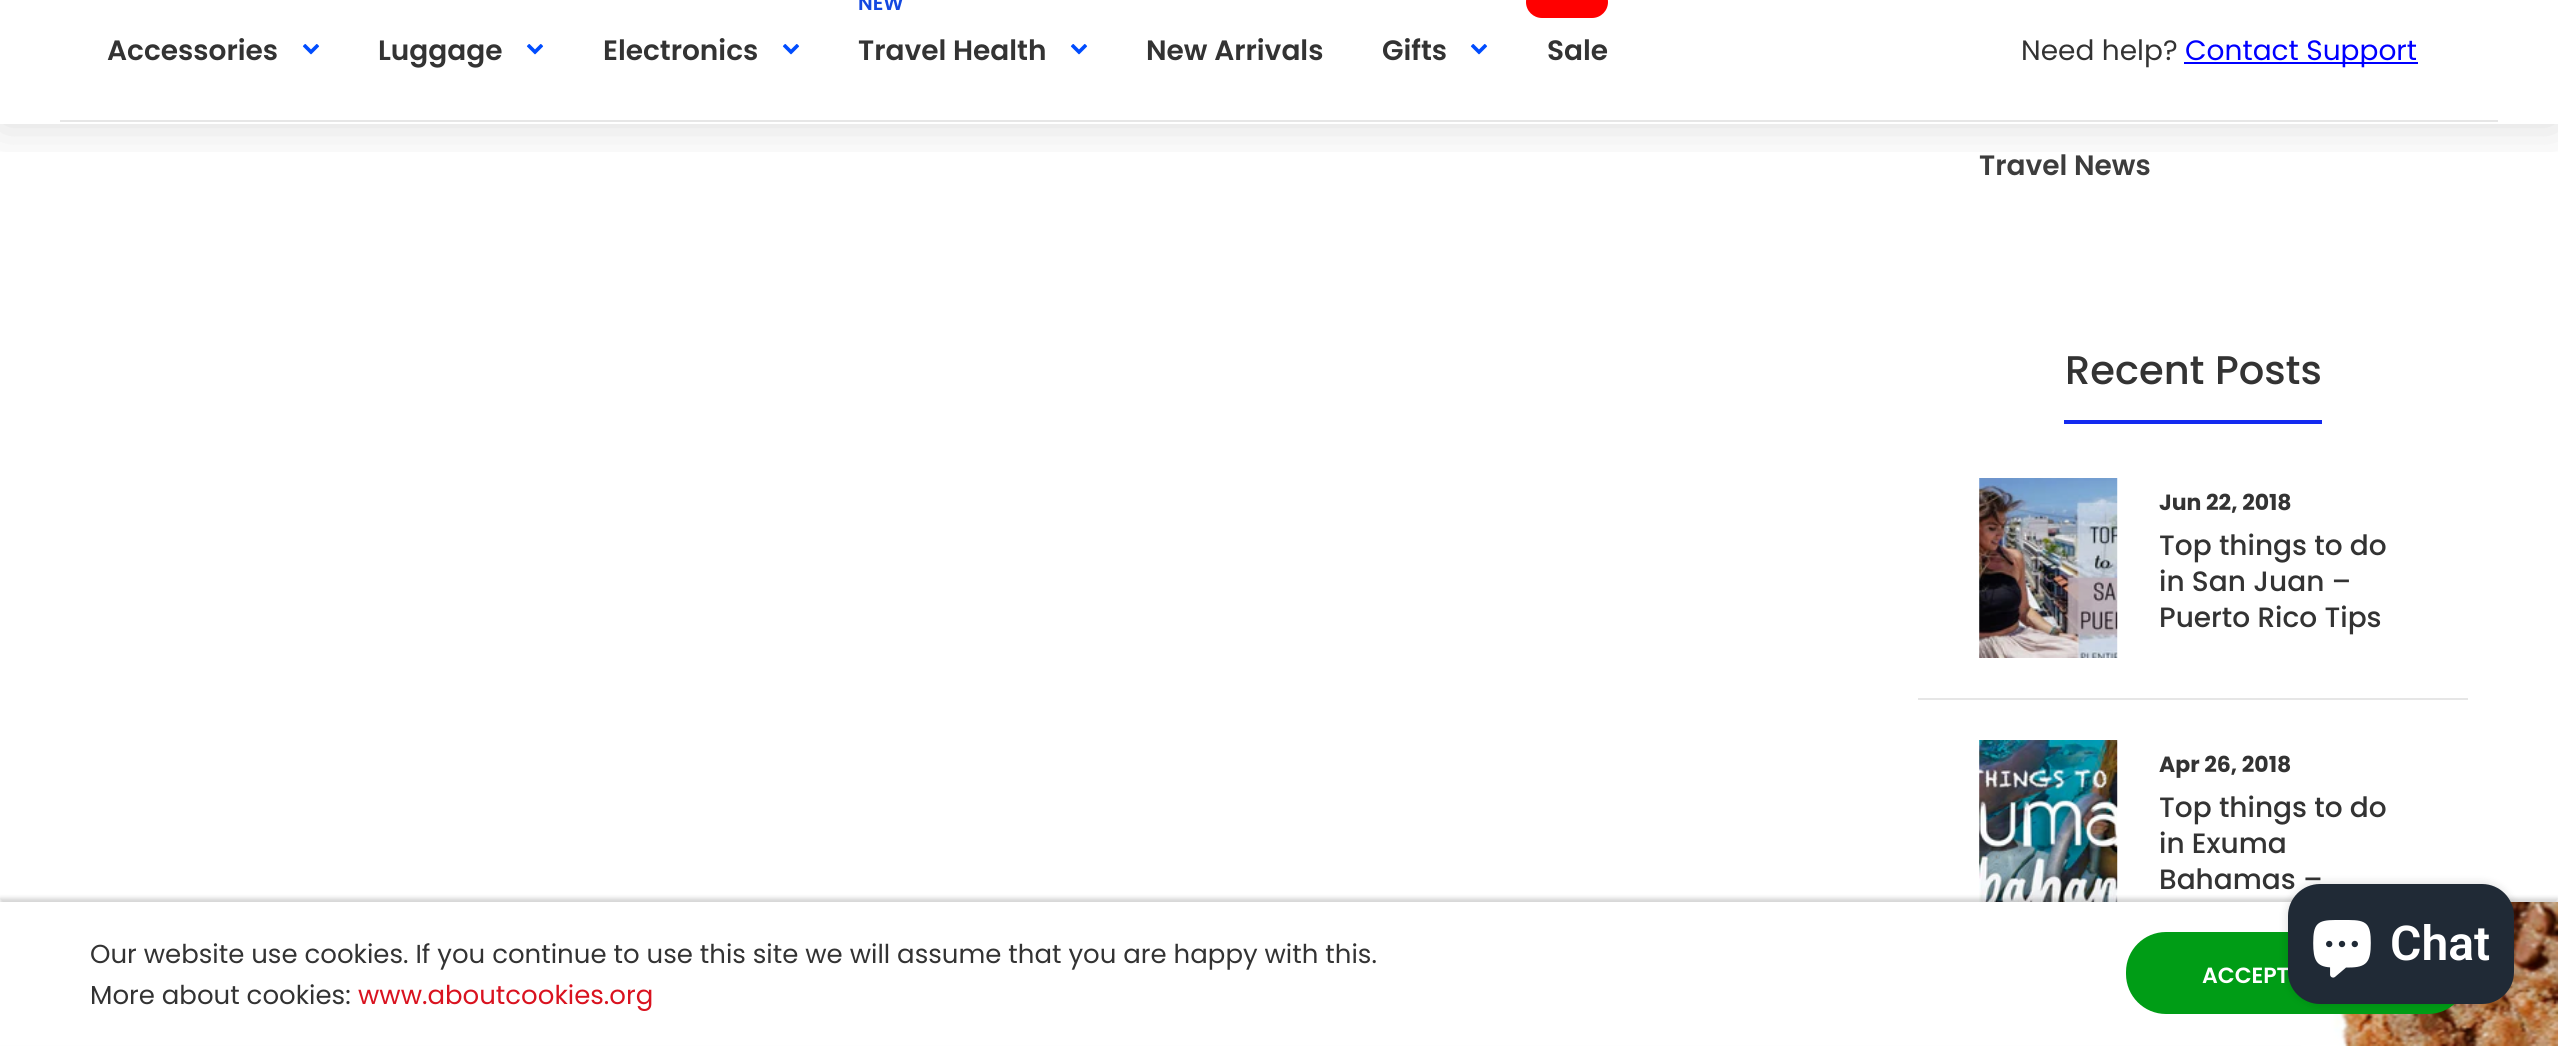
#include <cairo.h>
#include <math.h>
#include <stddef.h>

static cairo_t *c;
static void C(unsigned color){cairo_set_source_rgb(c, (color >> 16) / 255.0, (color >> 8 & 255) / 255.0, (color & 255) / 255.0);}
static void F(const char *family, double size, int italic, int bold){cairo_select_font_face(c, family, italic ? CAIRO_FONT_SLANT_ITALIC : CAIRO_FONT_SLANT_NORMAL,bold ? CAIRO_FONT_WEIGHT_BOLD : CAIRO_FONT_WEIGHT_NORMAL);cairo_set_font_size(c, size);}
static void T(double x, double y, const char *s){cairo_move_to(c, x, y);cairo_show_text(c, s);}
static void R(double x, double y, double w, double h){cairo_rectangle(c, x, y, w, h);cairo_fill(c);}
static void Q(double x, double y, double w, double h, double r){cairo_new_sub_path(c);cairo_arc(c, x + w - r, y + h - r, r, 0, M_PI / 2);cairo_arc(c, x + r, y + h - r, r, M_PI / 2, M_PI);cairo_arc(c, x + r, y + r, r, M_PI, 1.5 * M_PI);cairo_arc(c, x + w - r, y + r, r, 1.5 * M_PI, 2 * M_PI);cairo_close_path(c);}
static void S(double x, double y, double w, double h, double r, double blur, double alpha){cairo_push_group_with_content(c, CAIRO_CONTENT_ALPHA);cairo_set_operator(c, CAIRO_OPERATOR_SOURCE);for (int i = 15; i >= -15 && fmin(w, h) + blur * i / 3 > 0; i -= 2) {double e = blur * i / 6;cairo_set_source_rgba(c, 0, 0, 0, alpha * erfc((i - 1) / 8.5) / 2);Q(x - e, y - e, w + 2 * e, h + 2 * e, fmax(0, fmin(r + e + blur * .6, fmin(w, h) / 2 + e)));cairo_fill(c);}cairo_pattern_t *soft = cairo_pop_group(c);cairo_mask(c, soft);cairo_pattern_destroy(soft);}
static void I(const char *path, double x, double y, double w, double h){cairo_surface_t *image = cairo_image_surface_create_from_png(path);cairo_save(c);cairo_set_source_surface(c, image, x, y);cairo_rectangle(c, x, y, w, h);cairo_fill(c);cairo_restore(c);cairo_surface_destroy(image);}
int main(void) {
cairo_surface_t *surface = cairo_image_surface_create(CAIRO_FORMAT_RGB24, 2558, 1046);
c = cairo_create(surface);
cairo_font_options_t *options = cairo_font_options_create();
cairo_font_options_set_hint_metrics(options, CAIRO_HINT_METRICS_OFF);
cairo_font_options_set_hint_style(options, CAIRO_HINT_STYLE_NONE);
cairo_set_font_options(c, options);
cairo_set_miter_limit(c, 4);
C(0xffffff);
cairo_paint(c);
cairo_save(c);
cairo_rectangle(c,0,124,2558,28);
cairo_clip(c);
C(0x000000);
S(0,0,2558,124,0,25,.15);
cairo_restore(c);
C(0xe6e6e6);
R(60,120,2438,2);
F("Poppins SemiBold",28,0,0);
C(0x333333);
T(107,60,"Accessories");
I("1.png",302,44,18,11);
T(378,60,"Luggage");
I("1.png",526,44,18,11);
T(603,60,"Electronics");
I("1.png",782,44,18,11);
F("Poppins SemiBold",20,0,0);
C(0x1348e0);
T(858,10,"NEW");
F("Poppins SemiBold",28,0,0);
C(0x333333);
T(858,60,"Travel Health");
I("1.png",1070,44,18,11);
T(1146,60,"New Arrivals");
T(1382,60,"Gifts");
I("1.png",1470,44,18,11);
C(0xff0000);
Q(1526,-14,82,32,16);
cairo_fill(c);
C(0x333333);
T(1547,60,"Sale");
F("Poppins",28,0,0);
T(2021,60,"Need help?");
C(0x0000ff);
R(2184,62,234,2);
T(2185,60,"Contact Support");
F("Poppins SemiBold",28,0,0);
C(0x3d3d3d);
T(1979,175,"Travel News");
C(0x132af0);
R(2064,420,258,4);
F("Poppins Medium",40,0,0);
C(0x333333);
T(2065,384,"Recent Posts");
I("2.png",1979,478,139,180);
F("Poppins",22,0,1);
T(2159,510,"Jun 22, 2018");
F("Poppins Medium",28,0,0);
T(2159,555,"Top things to do");
T(2159,591,"in San Juan –");
T(2159,627,"Puerto Rico Tips");
C(0xe6e6e6);
R(1918,698,550,2);
I("3.png",1979,740,139,162);
F("Poppins",22,0,1);
C(0x333333);
T(2159,772,"Apr 26, 2018");
F("Poppins Medium",28,0,0);
T(2159,817,"Top things to do");
T(2159,853,"in Exuma");
T(2159,889,"Bahamas –");
C(0x323232);
S(0,898,2558,144,0,2,.2);
C(0xffffff);
R(0,902,2301,143);
I("4.png",2301,902,257,144);
F("Poppins",26,0,0);
C(0x333333);
T(90,963,"Our website use cookies. If you continue to use this site we will assume that you are happy with this.");
T(90,1004,"More about cookies:");
C(0xd9121f);
T(358,1004,"www.aboutcookies.org");
C(0x009d16);
Q(2126,932,342,82,40);
cairo_fill(c);
F("Poppins SemiBold",22,0,0);
C(0xffffff);
T(2202,983,"ACCEPT");
C(0x000000);
S(2288,884,226,120,32,5,.15);
C(0x202a36);
Q(2288,884,226,120,32);
cairo_fill(c);
I("5.png",2313,920,58,58);
F("Roboto SemiBold",48,0,0);
C(0xffffff);
T(2390,960,"Chat");
cairo_surface_write_to_png(surface, "o.png");
cairo_font_options_destroy(options);
cairo_destroy(c);
cairo_surface_destroy(surface);
return 0;
}
